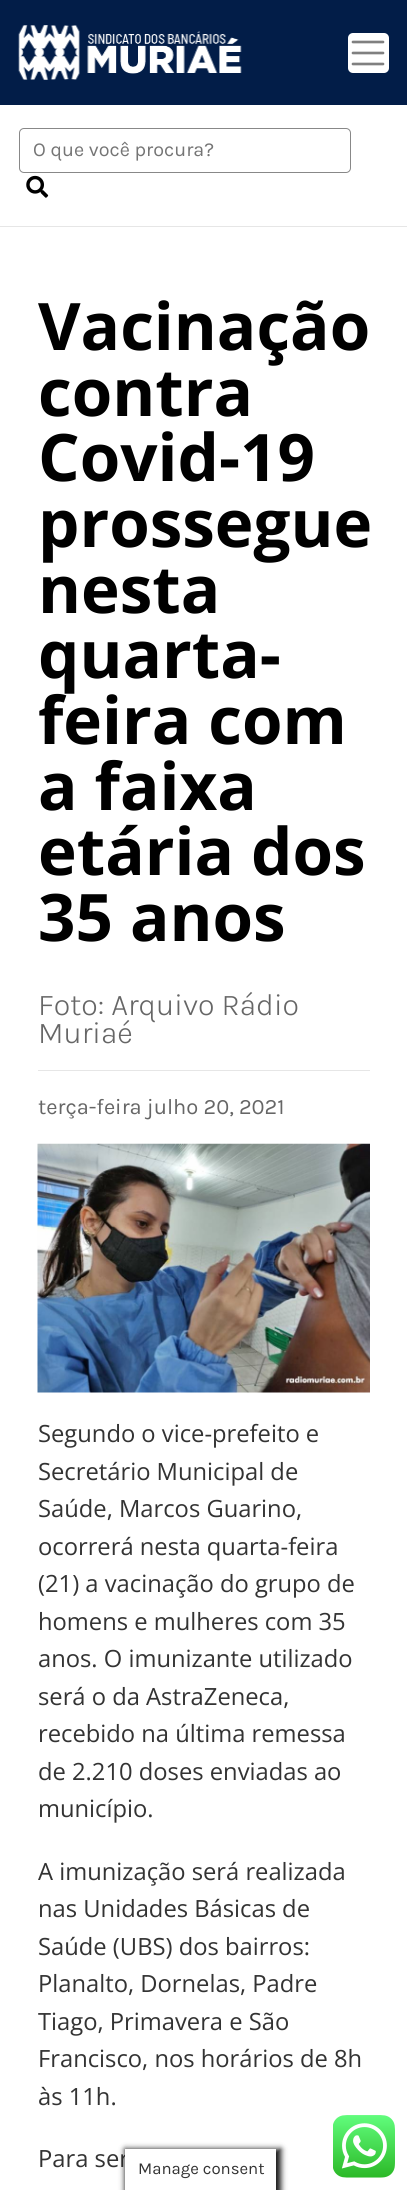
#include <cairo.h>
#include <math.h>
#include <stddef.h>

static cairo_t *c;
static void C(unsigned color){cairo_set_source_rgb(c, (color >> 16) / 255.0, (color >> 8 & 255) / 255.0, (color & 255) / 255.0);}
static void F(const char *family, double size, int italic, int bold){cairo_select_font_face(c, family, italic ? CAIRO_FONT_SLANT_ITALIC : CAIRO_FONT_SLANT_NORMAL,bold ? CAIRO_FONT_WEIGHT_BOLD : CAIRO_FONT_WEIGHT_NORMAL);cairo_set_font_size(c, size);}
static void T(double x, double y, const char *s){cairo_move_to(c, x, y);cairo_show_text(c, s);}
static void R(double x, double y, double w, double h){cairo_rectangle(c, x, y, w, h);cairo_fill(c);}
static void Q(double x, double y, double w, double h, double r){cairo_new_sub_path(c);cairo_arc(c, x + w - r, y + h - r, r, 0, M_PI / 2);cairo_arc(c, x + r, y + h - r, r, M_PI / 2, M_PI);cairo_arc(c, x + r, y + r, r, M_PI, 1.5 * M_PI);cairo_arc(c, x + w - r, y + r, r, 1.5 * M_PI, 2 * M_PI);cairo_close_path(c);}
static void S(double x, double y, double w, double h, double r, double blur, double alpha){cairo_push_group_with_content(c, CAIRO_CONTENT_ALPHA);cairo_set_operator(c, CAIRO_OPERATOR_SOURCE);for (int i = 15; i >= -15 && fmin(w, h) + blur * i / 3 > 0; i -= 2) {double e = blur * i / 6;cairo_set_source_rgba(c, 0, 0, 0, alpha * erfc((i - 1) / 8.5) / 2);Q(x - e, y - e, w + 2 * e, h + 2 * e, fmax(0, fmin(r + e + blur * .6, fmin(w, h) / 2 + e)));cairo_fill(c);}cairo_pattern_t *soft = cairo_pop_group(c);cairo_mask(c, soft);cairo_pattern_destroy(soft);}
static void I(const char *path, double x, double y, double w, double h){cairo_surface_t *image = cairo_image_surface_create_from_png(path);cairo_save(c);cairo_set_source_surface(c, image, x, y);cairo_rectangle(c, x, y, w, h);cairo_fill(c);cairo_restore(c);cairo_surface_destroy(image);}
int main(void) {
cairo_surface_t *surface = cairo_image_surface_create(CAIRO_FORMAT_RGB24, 407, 2190);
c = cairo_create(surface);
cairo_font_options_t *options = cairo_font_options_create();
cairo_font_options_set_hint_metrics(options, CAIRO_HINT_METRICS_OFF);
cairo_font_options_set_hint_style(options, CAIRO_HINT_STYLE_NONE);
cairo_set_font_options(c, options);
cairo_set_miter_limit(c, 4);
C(0xffffff);
cairo_paint(c);
C(0x021d48);
R(0,0,407,105);
I("1.png",18,25,224,55);
C(0xffffff);
Q(348,33,41,40,5);
cairo_fill(c);
cairo_new_path(c);
cairo_move_to(c,353,42);
cairo_line_to(c,383,42);
cairo_move_to(c,353,53);
cairo_line_to(c,383,53);
cairo_move_to(c,353,64);
cairo_line_to(c,383,64);
C(0x808080);
cairo_set_line_width(c,2.7);
cairo_set_line_cap(c,CAIRO_LINE_CAP_ROUND);
cairo_stroke(c);
Q(19.5,128.5,331,44,4.5);
C(0x888888);
cairo_set_line_width(c,1);
cairo_set_line_cap(c,CAIRO_LINE_CAP_BUTT);
cairo_stroke(c);
F("Karla",19.75,0,0);
C(0x757575);
T(33,156,"O que você procura?");
I("2.png",26,175,23,23);
C(0xe6e6e6);
R(0,226,407,1);
F("Open Sans",65.5,0,1);
C(0x000000);
T(38,350,"Vacinação");
T(38,416,"contra");
T(38,481,"Covid-19");
T(38,547,"prossegue");
T(38,613,"nesta");
T(38,678,"quarta-");
T(38,744,"feira com");
T(38,810,"a faixa");
T(38,875,"etária dos");
T(38,941,"35 anos");
F("Karla Light",30.6,0,0);
C(0x666666);
T(38,1015,"Foto: Arquivo Rádio");
T(38,1043,"Muriaé");
C(0xe6e6e6);
R(38,1070,332,1);
F("Karla",21.9,0,0);
C(0x666666);
T(38,1114,"terça-feira julho 20, 2021");
I("3.png",37,1143,333,250);
F("Open Sans",23.75,0,0);
C(0x333333);
T(38,1442,"Segundo o vice-prefeito e");
T(38,1480,"Secretário Municipal de");
T(38,1517,"Saúde, Marcos Guarino,");
T(38,1555,"ocorrerá nesta quarta-feira");
T(38,1592,"(21) a vacinação do grupo de");
T(38,1630,"homens e mulheres com 35");
T(38,1667,"anos. O imunizante utilizado");
T(38,1705,"será o da AstraZeneca,");
T(38,1742,"recebido na última remessa");
T(38,1780,"de 2.210 doses enviadas ao");
T(38,1817,"município.");
T(38,1880,"A imunização será realizada");
T(38,1917,"nas Unidades Básicas de");
T(38,1955,"Saúde (UBS) dos bairros:");
T(38,1992,"Planalto, Dornelas, Padre");
T(38,2030,"Tiago, Primavera e São");
T(38,2067,"Francisco, nos horários de 8h");
T(38,2105,"às 11h.");
T(38,2167,"Para ser");
C(0x161616);
S(125,2149,156,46,0,3,1);
C(0xffffff);
R(125,2149,151,41);
F("Karla",16.75,0,0);
C(0x333333);
T(138,2174,"Manage consent");
I("4.png",333,2115,62,63);
cairo_surface_write_to_png(surface, "o.png");
cairo_font_options_destroy(options);
cairo_destroy(c);
cairo_surface_destroy(surface);
return 0;
}
